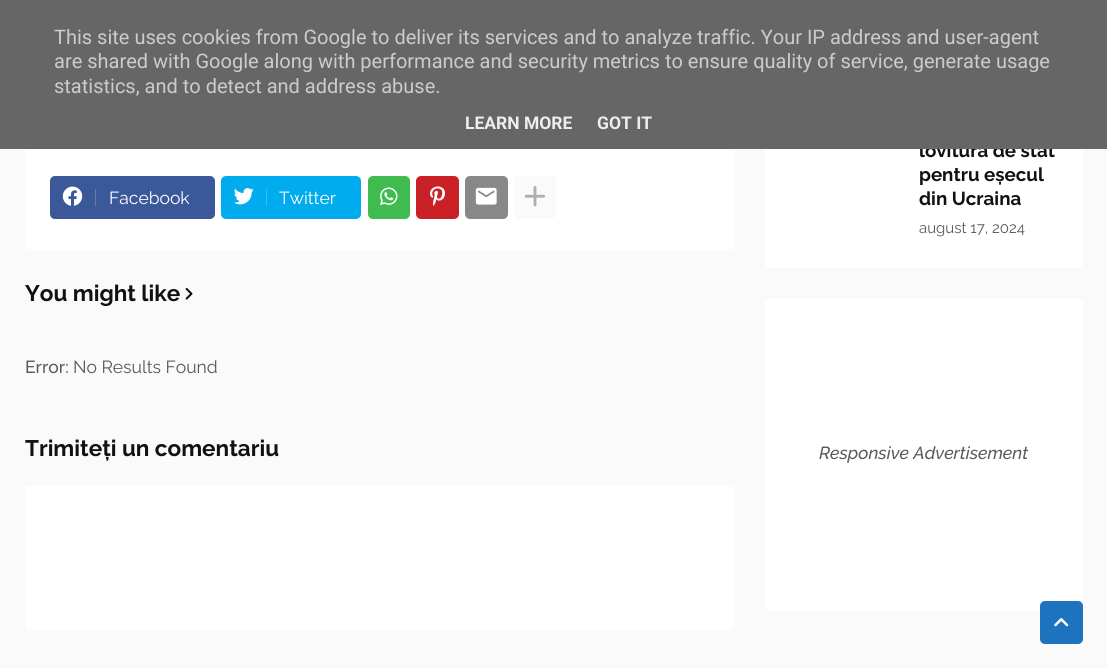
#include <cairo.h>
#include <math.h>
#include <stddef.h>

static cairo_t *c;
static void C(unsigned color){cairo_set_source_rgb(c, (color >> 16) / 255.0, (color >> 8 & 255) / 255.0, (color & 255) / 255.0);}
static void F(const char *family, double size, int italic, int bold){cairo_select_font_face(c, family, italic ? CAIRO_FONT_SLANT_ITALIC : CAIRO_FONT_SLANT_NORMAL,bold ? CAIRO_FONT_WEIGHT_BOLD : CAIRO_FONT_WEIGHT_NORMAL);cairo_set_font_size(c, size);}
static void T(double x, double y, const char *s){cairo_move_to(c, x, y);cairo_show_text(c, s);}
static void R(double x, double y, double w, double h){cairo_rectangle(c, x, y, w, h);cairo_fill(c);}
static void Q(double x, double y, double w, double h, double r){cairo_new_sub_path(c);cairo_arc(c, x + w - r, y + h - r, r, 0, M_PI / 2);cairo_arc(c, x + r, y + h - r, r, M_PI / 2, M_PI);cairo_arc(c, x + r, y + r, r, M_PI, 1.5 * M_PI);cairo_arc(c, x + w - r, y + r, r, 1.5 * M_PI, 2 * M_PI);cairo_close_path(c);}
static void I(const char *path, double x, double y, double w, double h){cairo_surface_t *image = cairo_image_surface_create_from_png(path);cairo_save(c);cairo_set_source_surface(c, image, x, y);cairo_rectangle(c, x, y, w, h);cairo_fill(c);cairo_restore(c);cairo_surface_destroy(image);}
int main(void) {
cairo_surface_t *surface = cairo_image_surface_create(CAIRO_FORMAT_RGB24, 1107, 668);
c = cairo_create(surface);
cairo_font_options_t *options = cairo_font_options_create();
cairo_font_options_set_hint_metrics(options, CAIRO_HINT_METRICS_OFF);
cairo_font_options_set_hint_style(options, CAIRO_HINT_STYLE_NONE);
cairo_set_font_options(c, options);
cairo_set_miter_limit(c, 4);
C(0xfafafa);
cairo_paint(c);
C(0xffffff);
Q(25,-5,709,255,5);
cairo_fill(c);
Q(765,-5,318,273,5);
cairo_fill(c);
F("Raleway",18.75,0,1);
C(0x111111);
T(919,157,"lovitură de stat");
C(0x666666);
R(0,0,1107,149);
F("Roboto",20,0,0);
C(0xcccccc);
T(54,44,"This site uses cookies from Google to deliver its services and to analyze traffic. Your IP address and user-agent");
T(54,68,"are shared with Google along with performance and security metrics to ensure quality of service, generate usage");
T(54,93,"statistics, and to detect and address abuse.");
F("Roboto",17.5,0,1);
C(0xeeeeee);
T(465,129,"LEARN MORE");
T(597,129,"GOT IT");
C(0x3b5999);
Q(50,176,165,43,5);
cairo_fill(c);
I("1.png",62,186,21,20);
C(0x627aad);
R(95,189,1,17);
F("Raleway",17.5,0,0);
C(0xffffff);
T(109,204,"Facebook");
C(0x00acee);
Q(221,176,140,43,5);
cairo_fill(c);
I("2.png",234,188,20,17);
C(0x33bdf1);
R(266,189,1,17);
C(0xffffff);
T(279,204,"Twitter");
C(0x3fbb50);
Q(368,176,42,43,5);
cairo_fill(c);
I("3.png",380,187,18,18);
C(0xca2127);
Q(416,176,43,43,5);
cairo_fill(c);
I("4.png",430,186,15,20);
C(0x888888);
Q(465,176,43,43,5);
cairo_fill(c);
I("5.png",475,187,22,18);
C(0xfafafa);
Q(514,176,42,43,5);
cairo_fill(c);
I("6.png",524,186,22,21);
F("Raleway",22.5,0,1);
C(0x111111);
T(25,301,"You might like");
I("7.png",185,288,8,12);
F("Raleway Medium",17.5,0,0);
C(0x595959);
T(25,373,"Error:");
F("Raleway",17.5,0,0);
T(73,373,"No Results Found");
F("Raleway",22.5,0,1);
C(0x111111);
T(25,456,"Trimiteți un comentariu");
C(0xffffff);
Q(25,486,709,144,5);
cairo_fill(c);
F("Raleway",18.75,0,1);
C(0x111111);
T(919,181,"pentru eșecul");
T(919,205,"din Ucraina");
F("Raleway",15,0,0);
C(0x595959);
T(919,233,"august 17, 2024");
C(0xffffff);
Q(765,299,318,312,5);
cairo_fill(c);
F("Raleway Medium",17.5,1,0);
C(0x595959);
T(819,459,"Responsive Advertisement");
C(0x1e73be);
Q(1040,601,43,43,5);
cairo_fill(c);
I("8.png",1054,618,15,9);
cairo_surface_write_to_png(surface, "o.png");
cairo_font_options_destroy(options);
cairo_destroy(c);
cairo_surface_destroy(surface);
return 0;
}
